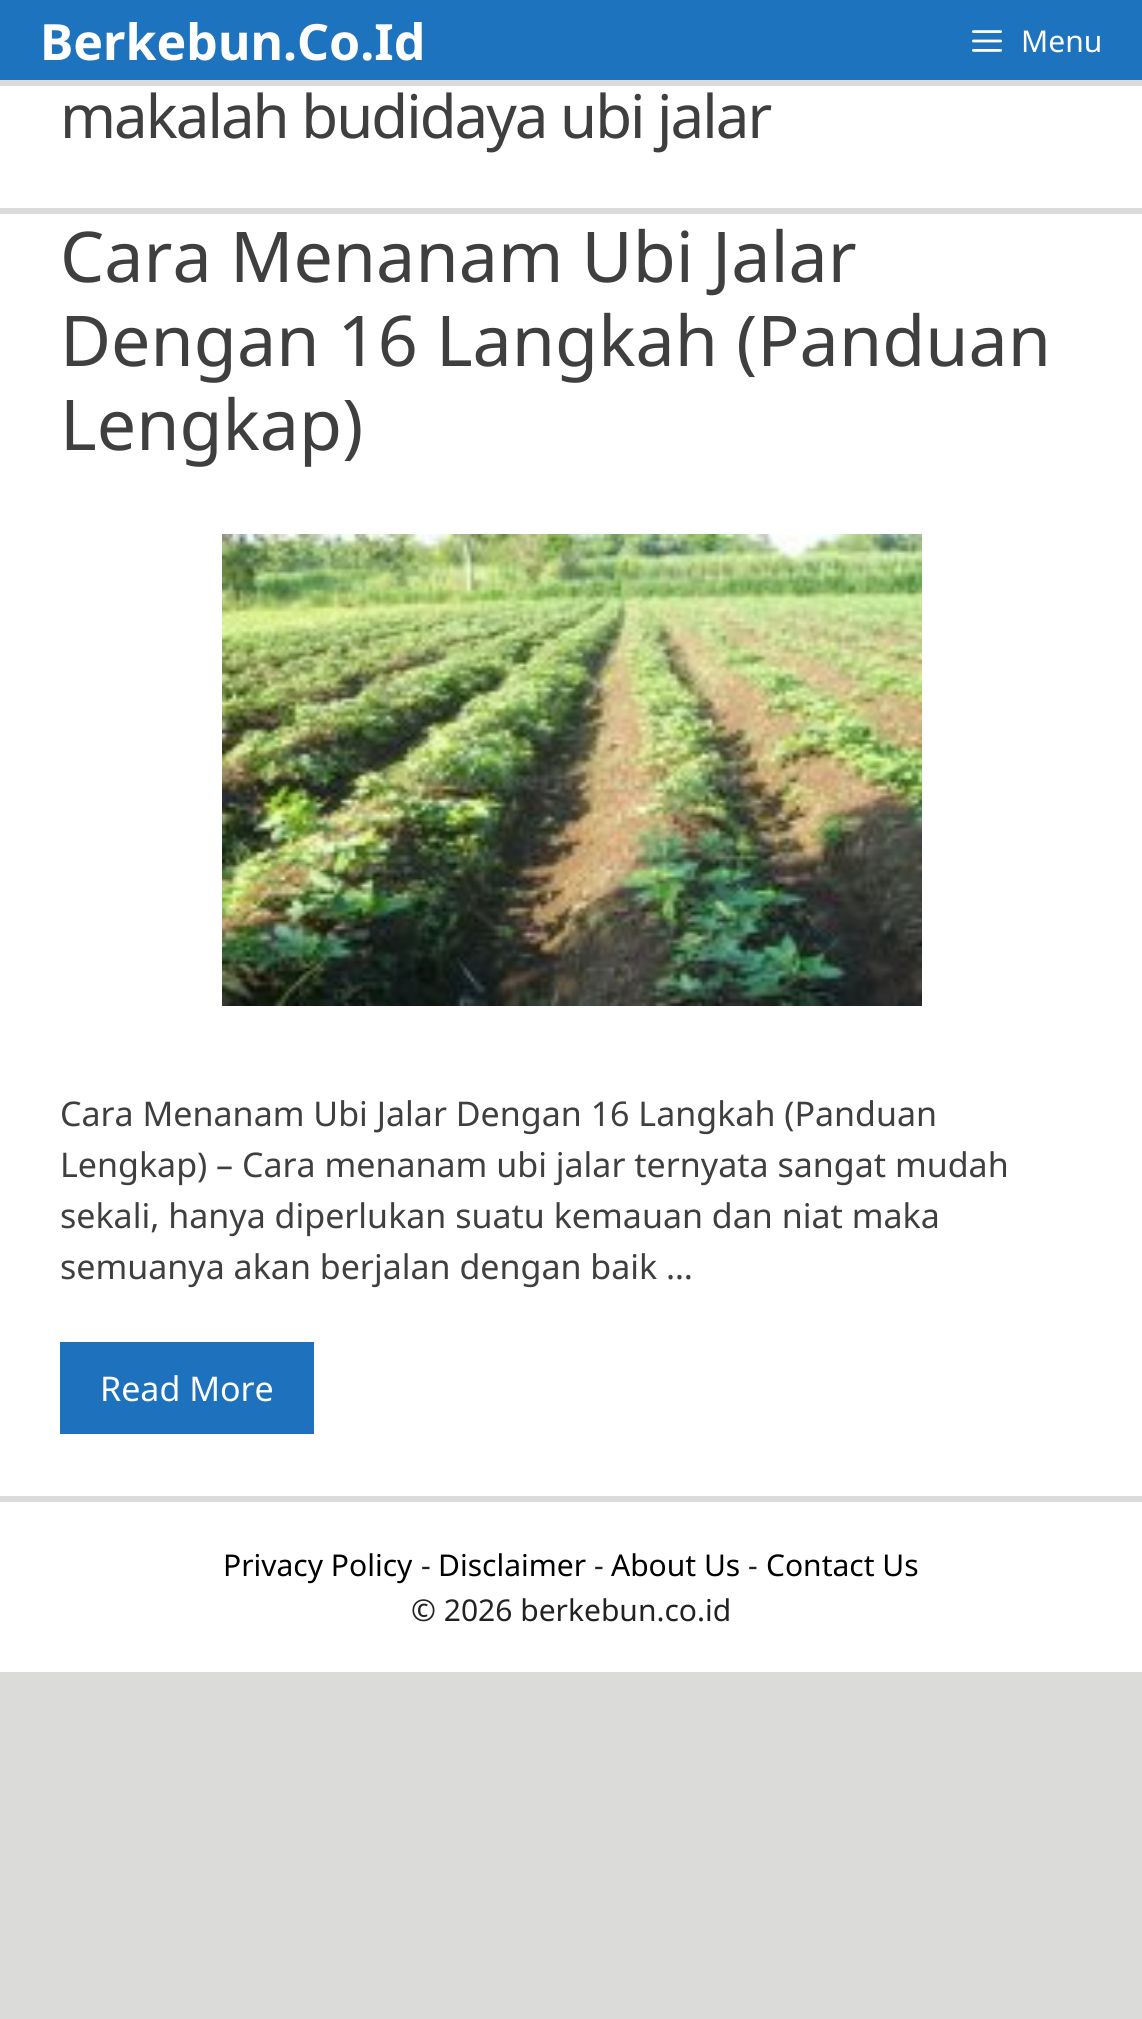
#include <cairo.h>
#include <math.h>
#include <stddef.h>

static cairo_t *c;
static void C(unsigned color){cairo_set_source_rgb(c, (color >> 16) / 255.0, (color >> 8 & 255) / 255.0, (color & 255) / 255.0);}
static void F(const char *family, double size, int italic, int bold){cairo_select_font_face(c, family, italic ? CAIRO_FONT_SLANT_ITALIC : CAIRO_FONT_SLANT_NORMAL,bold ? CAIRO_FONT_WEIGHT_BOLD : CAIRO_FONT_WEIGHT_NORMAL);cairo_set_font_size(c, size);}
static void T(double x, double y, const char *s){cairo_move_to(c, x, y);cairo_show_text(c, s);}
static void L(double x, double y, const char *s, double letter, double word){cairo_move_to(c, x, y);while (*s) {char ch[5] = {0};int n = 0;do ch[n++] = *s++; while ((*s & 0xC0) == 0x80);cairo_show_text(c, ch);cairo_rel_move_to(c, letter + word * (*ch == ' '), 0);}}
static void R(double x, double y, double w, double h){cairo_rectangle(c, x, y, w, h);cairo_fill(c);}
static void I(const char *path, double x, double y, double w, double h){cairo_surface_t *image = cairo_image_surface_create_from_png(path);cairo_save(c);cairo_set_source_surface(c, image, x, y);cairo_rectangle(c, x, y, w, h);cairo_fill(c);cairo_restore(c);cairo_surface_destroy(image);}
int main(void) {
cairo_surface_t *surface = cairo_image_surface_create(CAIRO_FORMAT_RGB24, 1142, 2019);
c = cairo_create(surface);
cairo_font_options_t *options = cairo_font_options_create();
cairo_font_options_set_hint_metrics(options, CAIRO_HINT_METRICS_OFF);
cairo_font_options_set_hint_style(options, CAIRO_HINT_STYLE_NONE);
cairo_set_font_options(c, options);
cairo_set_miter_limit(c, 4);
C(0xdbdbd9);
cairo_paint(c);
C(0x1e73be);
R(0,0,1142,80);
F("Noto Sans",50,0,1);
C(0xffffff);
T(40,60,"Berkebun.Co.Id");
I("1.png",972,30,30,22);
F("Noto Sans",30,0,0);
T(1021,52,"Menu");
R(0,86,1142,122);
F("Noto Sans",60,0,0);
C(0x3f3f3f);
L(60,138,"makalah budidaya ubi jalar",-2,0);
C(0xffffff);
R(0,214,1142,1282);
F("Noto Sans",70,0,0);
C(0x3f3f3f);
T(60,282,"Cara Menanam Ubi Jalar");
T(60,366,"Dengan 16 Langkah (Panduan");
T(60,450,"Lengkap)");
I("2.png",222,534,700,472);
F("Noto Sans",34,0,0);
T(60,1126,"Cara Menanam Ubi Jalar Dengan 16 Langkah (Panduan");
T(60,1177,"Lengkap) – Cara menanam ubi jalar ternyata sangat mudah");
T(60,1228,"sekali, hanya diperlukan suatu kemauan dan niat maka");
T(60,1279,"semuanya akan berjalan dengan baik …");
C(0x1e72bd);
R(60,1342,254,92);
C(0xffffff);
T(100,1401,"Read More");
R(0,1502,1142,170);
F("Noto Sans",30,0,0);
C(0x000000);
T(223,1576,"Privacy Policy");
C(0x222222);
T(421,1576,"-");
C(0x000000);
T(438,1576,"Disclaimer");
C(0x222222);
T(594,1576,"-");
C(0x000000);
T(611,1576,"About Us");
C(0x222222);
T(748,1576,"-");
C(0x000000);
T(766,1576,"Contact Us");
C(0x222222);
T(411,1621,"© 2026 berkebun.co.id");
cairo_surface_write_to_png(surface, "o.png");
cairo_font_options_destroy(options);
cairo_destroy(c);
cairo_surface_destroy(surface);
return 0;
}
